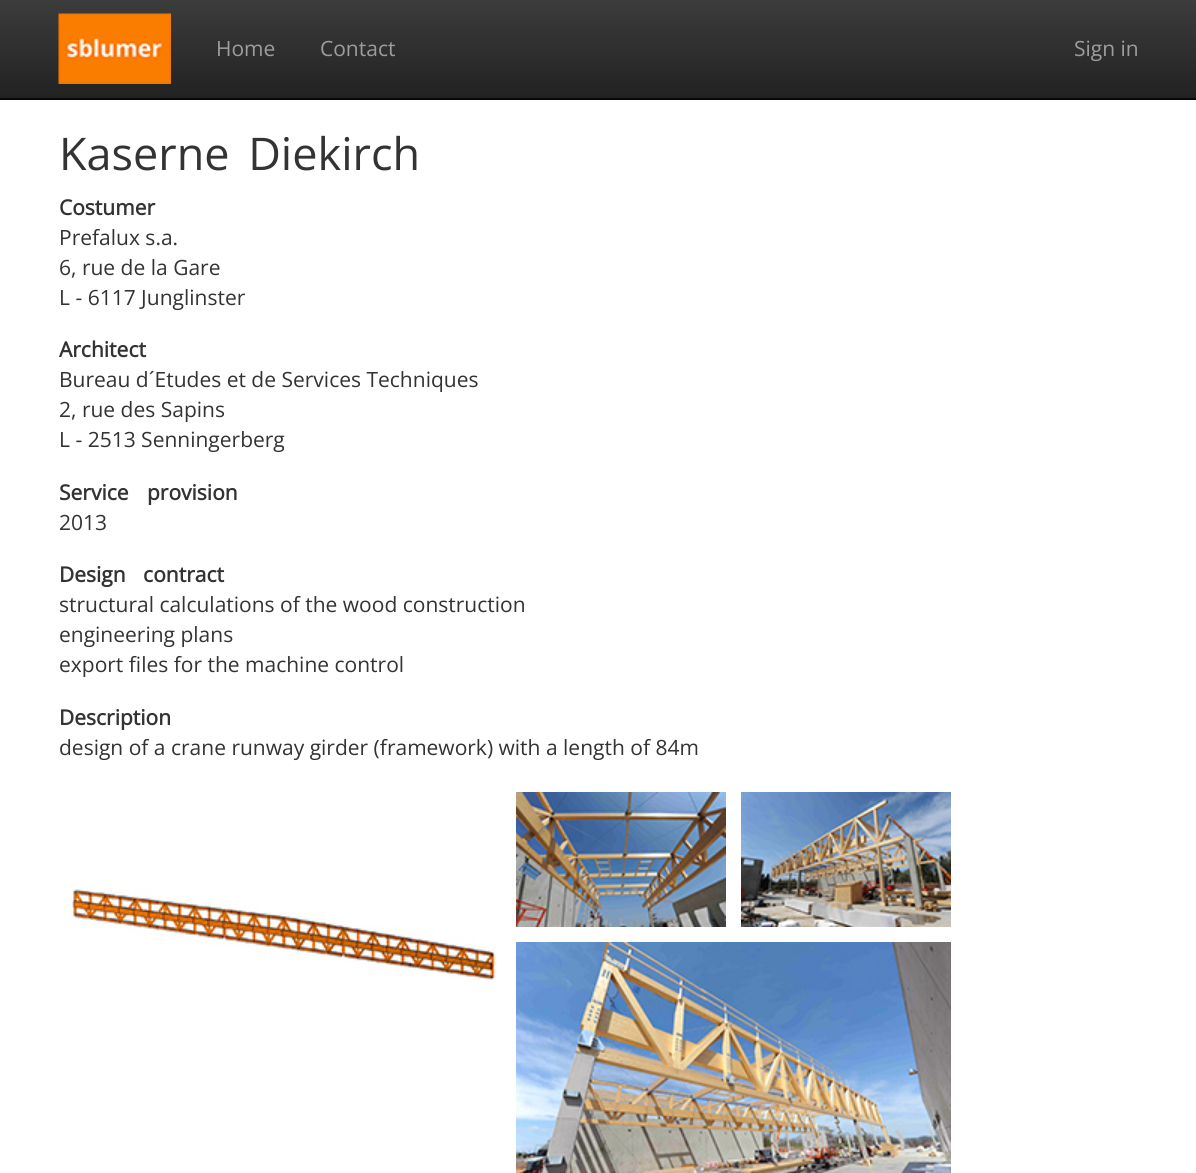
#include <cairo.h>
#include <math.h>
#include <stddef.h>

static cairo_t *c;
static void C(unsigned color){cairo_set_source_rgb(c, (color >> 16) / 255.0, (color >> 8 & 255) / 255.0, (color & 255) / 255.0);}
static void F(const char *family, double size, int italic, int bold){cairo_select_font_face(c, family, italic ? CAIRO_FONT_SLANT_ITALIC : CAIRO_FONT_SLANT_NORMAL,bold ? CAIRO_FONT_WEIGHT_BOLD : CAIRO_FONT_WEIGHT_NORMAL);cairo_set_font_size(c, size);}
static void T(double x, double y, const char *s){cairo_move_to(c, x, y);cairo_show_text(c, s);}
static void L(double x, double y, const char *s, double letter, double word){cairo_move_to(c, x, y);while (*s) {char ch[5] = {0};int n = 0;do ch[n++] = *s++; while ((*s & 0xC0) == 0x80);cairo_show_text(c, ch);cairo_rel_move_to(c, letter + word * (*ch == ' '), 0);}}
static void R(double x, double y, double w, double h){cairo_rectangle(c, x, y, w, h);cairo_fill(c);}
static void I(const char *path, double x, double y, double w, double h){cairo_surface_t *image = cairo_image_surface_create_from_png(path);cairo_save(c);cairo_set_source_surface(c, image, x, y);cairo_rectangle(c, x, y, w, h);cairo_fill(c);cairo_restore(c);cairo_surface_destroy(image);}
int main(void) {
cairo_surface_t *surface = cairo_image_surface_create(CAIRO_FORMAT_RGB24, 1196, 1173);
c = cairo_create(surface);
cairo_font_options_t *options = cairo_font_options_create();
cairo_font_options_set_hint_metrics(options, CAIRO_HINT_METRICS_OFF);
cairo_font_options_set_hint_style(options, CAIRO_HINT_STYLE_NONE);
cairo_set_font_options(c, options);
cairo_set_miter_limit(c, 4);
cairo_pattern_t *gradient;
C(0xffffff);
cairo_paint(c);
gradient = cairo_pattern_create_linear(599,0,599,98);
cairo_pattern_add_color_stop_rgba(gradient,0,0.235,0.235,0.235,1);
cairo_pattern_add_color_stop_rgba(gradient,1,0.133,0.133,0.133,1);
cairo_set_source(c,gradient);
cairo_pattern_destroy(gradient);
R(0,0,1196,98);
C(0x080808);
R(0,98,1196,2);
I("1.png",58,13,113,71);
F("Open Sans",21,0,0);
C(0x9d9d9d);
T(216,56,"Home");
T(320,56,"Contact");
T(1074,56,"Sign in");
F("Open Sans",45,0,0);
C(0x333333);
L(59,170,"Kaserne Diekirch",0,7);
F("Open Sans",21,0,1);
T(59,215,"Costumer");
F("Open Sans",21,0,0);
T(59,245,"Prefalux s.a.");
T(59,275,"6, rue de la Gare");
T(59,305,"L - 6117 Junglinster");
F("Open Sans",21,0,1);
T(59,357,"Architect");
F("Open Sans",21,0,0);
T(59,387,"Bureau d´Etudes et de Services Techniques");
T(59,417,"2, rue des Sapins");
T(59,447,"L - 2513 Senningerberg");
F("Open Sans",21,0,1);
L(59,500,"Service provision",0,13);
F("Open Sans",21,0,0);
T(59,530,"2013");
F("Open Sans",21,0,1);
L(59,582,"Design contract",0,12);
F("Open Sans",21,0,0);
T(59,612,"structural calculations of the wood construction");
T(59,642,"engineering plans");
T(59,672,"export files for the machine control");
F("Open Sans",21,0,1);
T(59,725,"Description");
F("Open Sans",21,0,0);
T(59,755,"design of a crane runway girder (framework) with a length of 84m");
I("2.png",71,889,427,91);
I("3.png",516,792,210,135);
I("4.png",741,792,210,135);
I("5.png",516,942,435,231);
cairo_surface_write_to_png(surface, "o.png");
cairo_font_options_destroy(options);
cairo_destroy(c);
cairo_surface_destroy(surface);
return 0;
}
